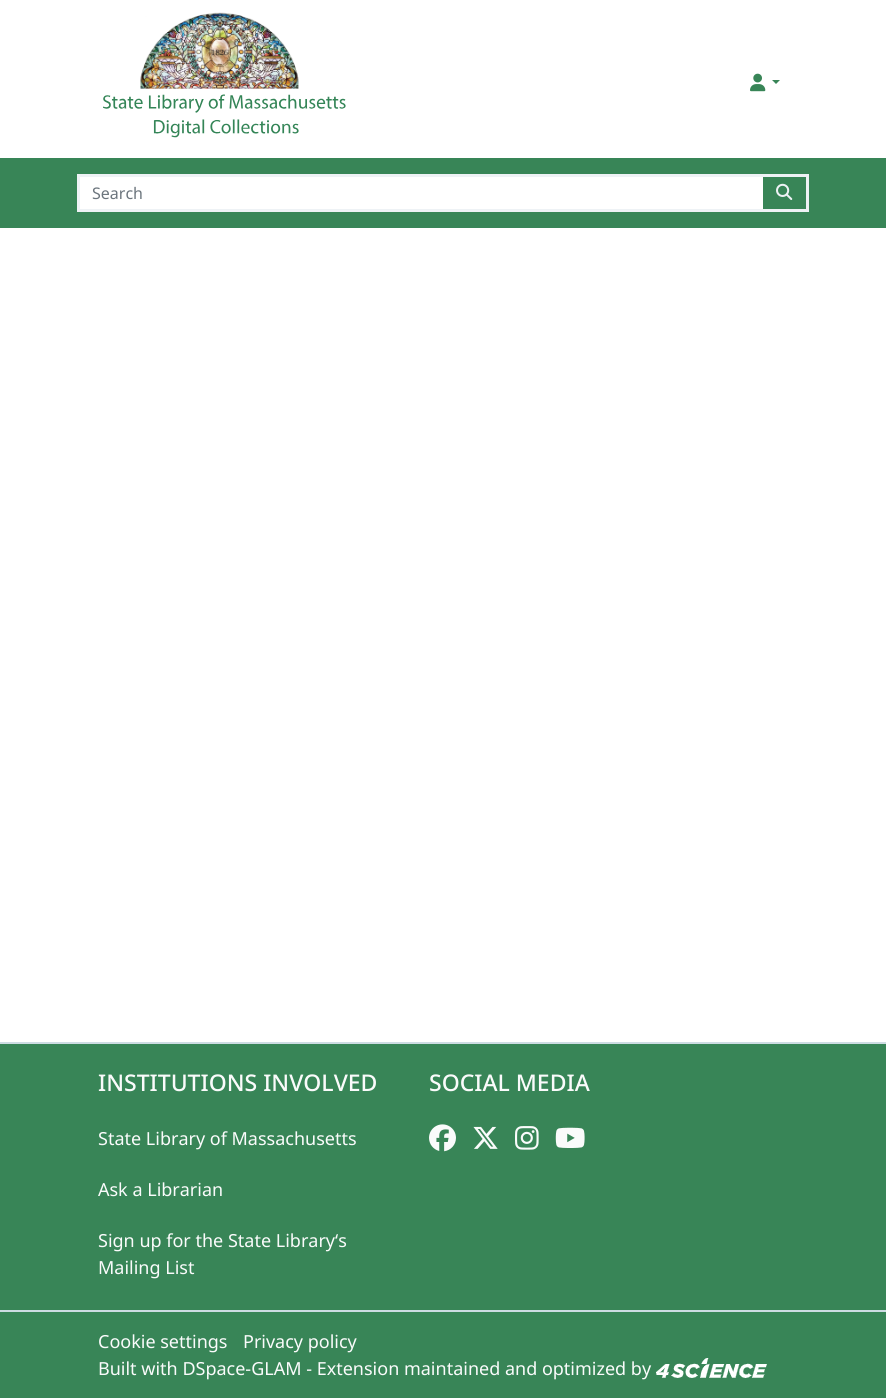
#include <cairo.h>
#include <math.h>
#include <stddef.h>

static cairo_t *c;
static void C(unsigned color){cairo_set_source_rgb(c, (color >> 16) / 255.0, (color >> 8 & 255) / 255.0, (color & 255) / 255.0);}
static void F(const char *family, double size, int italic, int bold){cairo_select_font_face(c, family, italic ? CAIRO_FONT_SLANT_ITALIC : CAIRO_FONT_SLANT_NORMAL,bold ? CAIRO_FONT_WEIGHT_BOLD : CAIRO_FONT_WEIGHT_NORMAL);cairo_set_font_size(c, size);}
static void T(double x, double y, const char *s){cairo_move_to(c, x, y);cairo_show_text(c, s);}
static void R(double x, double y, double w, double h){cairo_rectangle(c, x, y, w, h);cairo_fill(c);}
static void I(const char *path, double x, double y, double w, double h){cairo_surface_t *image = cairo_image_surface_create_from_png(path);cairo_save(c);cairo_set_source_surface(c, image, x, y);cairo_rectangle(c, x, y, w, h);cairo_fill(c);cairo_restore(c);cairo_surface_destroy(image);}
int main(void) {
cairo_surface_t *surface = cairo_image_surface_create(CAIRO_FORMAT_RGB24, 886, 1398);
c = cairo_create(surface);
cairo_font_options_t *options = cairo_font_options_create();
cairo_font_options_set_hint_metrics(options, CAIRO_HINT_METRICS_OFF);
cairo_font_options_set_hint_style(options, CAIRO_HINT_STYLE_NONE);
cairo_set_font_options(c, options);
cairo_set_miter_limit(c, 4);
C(0xffffff);
cairo_paint(c);
I("1.png",103,12,243,126);
I("2.png",750,73,16,19);
C(0x388557);
cairo_new_path(c);
cairo_move_to(c,772,80);
cairo_line_to(c,780,80);
cairo_line_to(c,776,84);
cairo_close_path(c);
cairo_fill(c);
R(0,158,886,70);
C(0xffffff);
R(80,177,683,32);
C(0xeef2f5);
R(77,174,732,3);
R(77,209,686,3);
R(77,174,3,38);
F("Noto Sans",16,0,0);
C(0x6c757d);
T(92,199,"Search");
C(0xeef2f5);
R(806,174,3,38);
R(762,209,47,3);
I("3.png",776,183,17,17);
C(0x388557);
R(0,1044,886,354);
C(0xcddce2);
R(0,1042,886,2);
R(0,1310,886,2);
F("Noto Sans Medium",23,0,0);
C(0xfafbfb);
T(98,1091,"INSTITUTIONS INVOLVED");
F("Noto Sans",18,0,0);
T(98,1145,"State Library of Massachusetts");
T(98,1196,"Ask a Librarian");
T(98,1247,"Sign up for the State Library‘s");
T(98,1274,"Mailing List");
F("Noto Sans Medium",23,0,0);
T(429,1091,"SOCIAL MEDIA");
I("4.png",429,1124,27,28);
I("5.png",473,1126,25,23);
I("6.png",515,1126,24,24);
I("7.png",555,1127,30,21);
F("Noto Sans",18,0,0);
T(98,1348,"Cookie settings");
T(243,1348,"Privacy policy");
T(98,1375,"Built with DSpace-GLAM - Extension maintained and optimized by");
I("8.png",656,1358,111,20);
cairo_surface_write_to_png(surface, "o.png");
cairo_font_options_destroy(options);
cairo_destroy(c);
cairo_surface_destroy(surface);
return 0;
}
